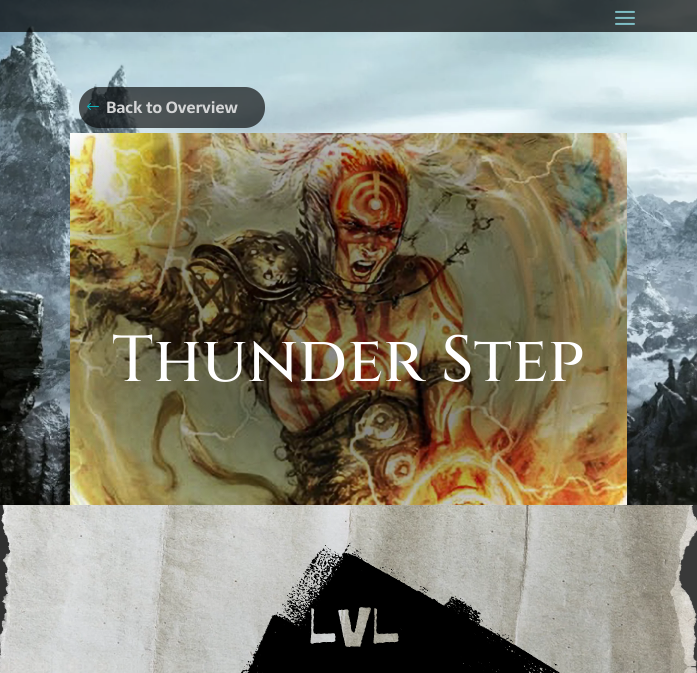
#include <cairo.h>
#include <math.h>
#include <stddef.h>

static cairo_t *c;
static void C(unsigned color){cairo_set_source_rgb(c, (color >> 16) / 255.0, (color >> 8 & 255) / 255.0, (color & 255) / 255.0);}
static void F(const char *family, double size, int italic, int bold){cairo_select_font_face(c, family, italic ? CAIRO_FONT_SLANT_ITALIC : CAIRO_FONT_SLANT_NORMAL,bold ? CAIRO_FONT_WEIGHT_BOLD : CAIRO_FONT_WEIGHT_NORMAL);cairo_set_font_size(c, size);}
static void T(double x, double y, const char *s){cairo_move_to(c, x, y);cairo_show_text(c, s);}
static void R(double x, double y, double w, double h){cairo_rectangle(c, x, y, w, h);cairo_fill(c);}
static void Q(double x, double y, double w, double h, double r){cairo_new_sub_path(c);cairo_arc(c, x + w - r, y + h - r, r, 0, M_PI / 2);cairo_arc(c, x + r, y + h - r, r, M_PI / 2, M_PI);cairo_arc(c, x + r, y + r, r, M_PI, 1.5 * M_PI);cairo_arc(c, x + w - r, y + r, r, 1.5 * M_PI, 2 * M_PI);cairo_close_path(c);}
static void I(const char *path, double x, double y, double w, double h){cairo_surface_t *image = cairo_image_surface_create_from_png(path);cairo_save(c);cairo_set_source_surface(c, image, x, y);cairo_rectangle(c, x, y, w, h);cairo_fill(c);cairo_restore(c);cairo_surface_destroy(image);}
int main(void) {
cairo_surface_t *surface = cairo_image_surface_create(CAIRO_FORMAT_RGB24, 697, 673);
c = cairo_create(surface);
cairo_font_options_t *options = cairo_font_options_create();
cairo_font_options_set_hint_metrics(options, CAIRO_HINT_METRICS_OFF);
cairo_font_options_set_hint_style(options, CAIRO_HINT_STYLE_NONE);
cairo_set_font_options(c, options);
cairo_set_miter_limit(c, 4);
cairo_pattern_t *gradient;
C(0xffffff);
cairo_paint(c);
I("1.png",0,0,697,505);
cairo_set_source_rgba(c,0,0,0,0.7);
R(0,0,697,32);
I("2.png",615,10,20,15);
cairo_set_source_rgba(c,0,0,0,0.64);
Q(79,87,186,41,20);
cairo_fill(c);
I("3.png",87,103,12,7);
F("Sarala",16,0,1);
C(0xd4d5d6);
T(106,113,"Back to Overview");
I("4.png",70,133,557,372);
F("Cinzel Medium",65,0,0);
C(0xffffff);
T(112,381,"Thunder Step");
gradient = cairo_pattern_create_radial(0,505,0,0,505,1388);
cairo_pattern_add_color_stop_rgba(gradient,0,0.188,0.188,0.188,1);
cairo_pattern_add_color_stop_rgba(gradient,1,0.259,0.259,0.259,1);
cairo_set_source(c,gradient);
cairo_pattern_destroy(gradient);
R(0,505,697,168);
I("5.png",0,505,697,168);
I("6.png",241,542,319,131);
cairo_surface_write_to_png(surface, "o.png");
cairo_font_options_destroy(options);
cairo_destroy(c);
cairo_surface_destroy(surface);
return 0;
}
